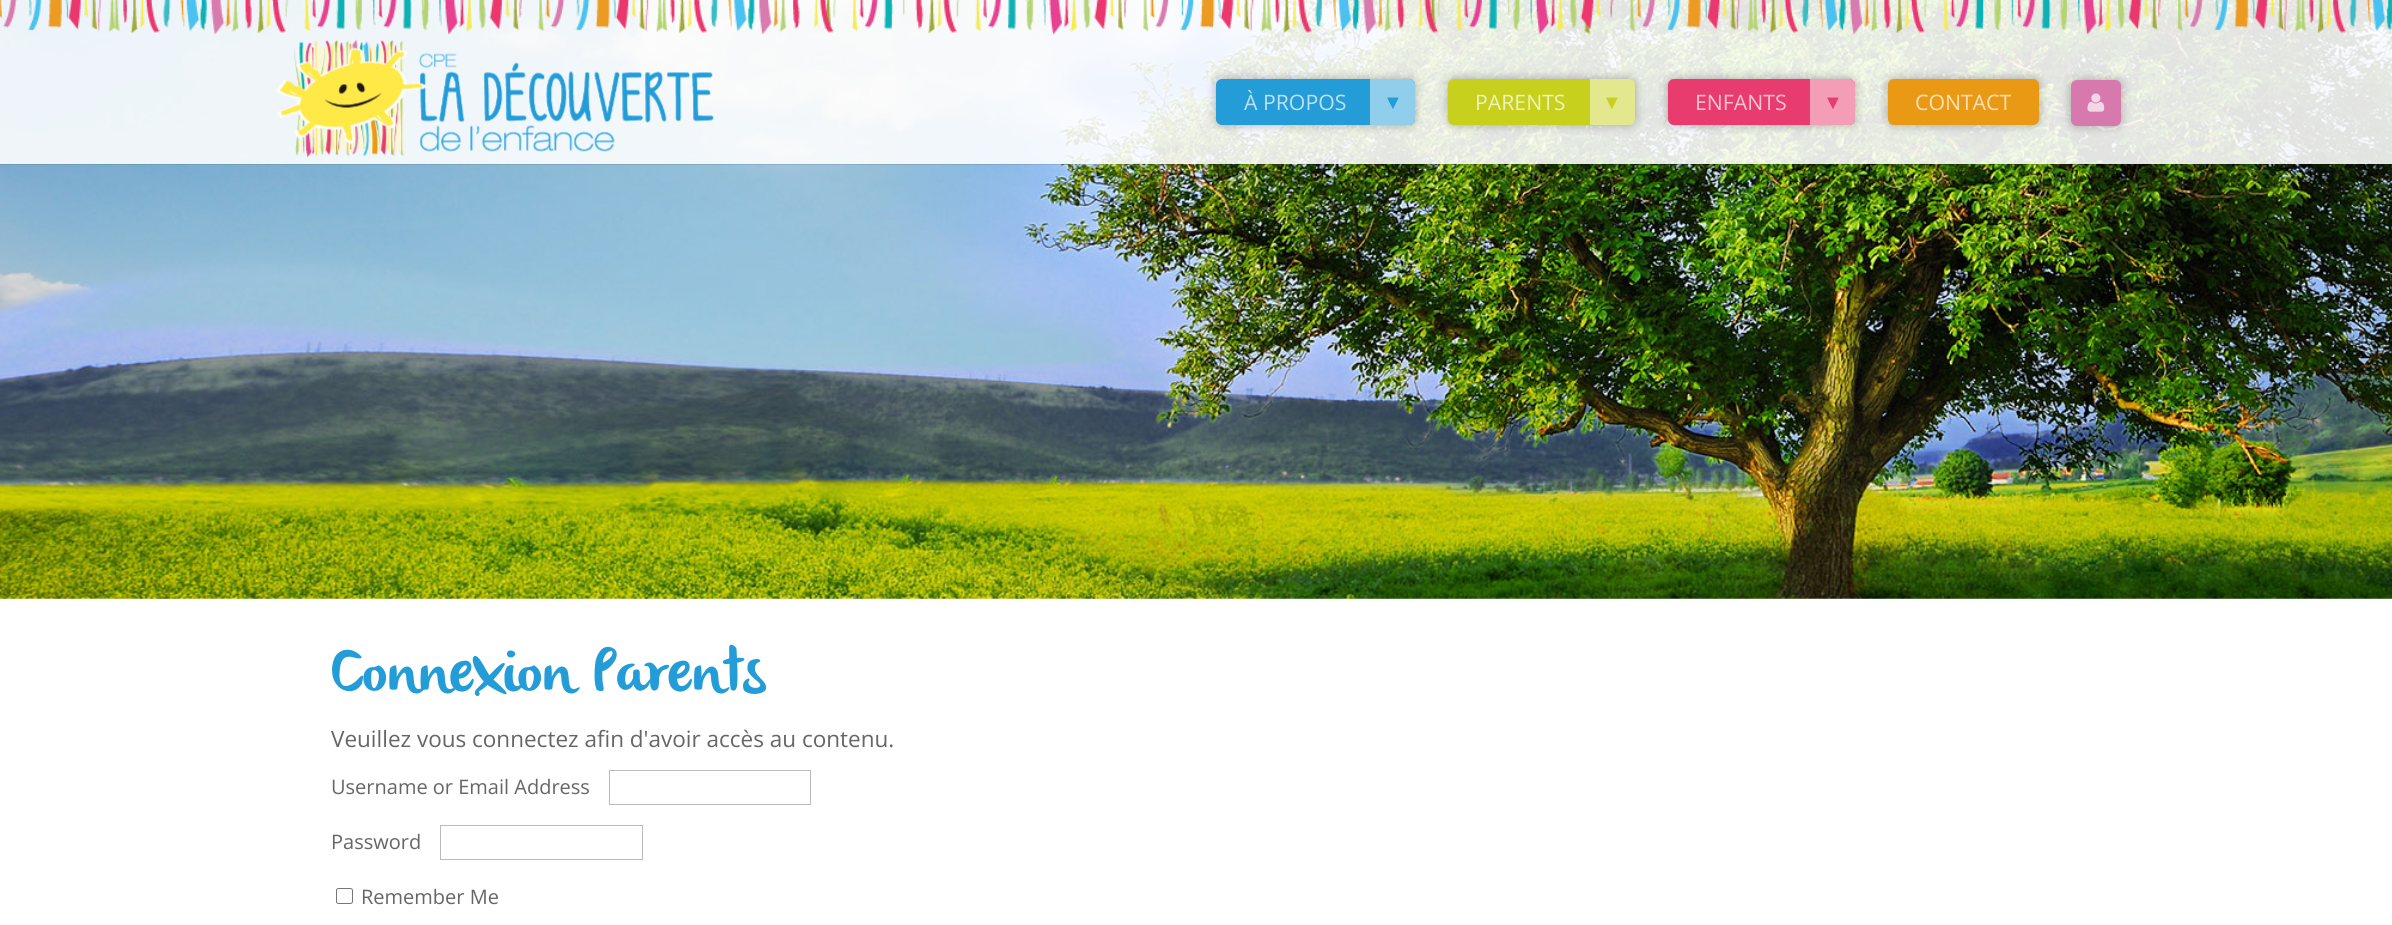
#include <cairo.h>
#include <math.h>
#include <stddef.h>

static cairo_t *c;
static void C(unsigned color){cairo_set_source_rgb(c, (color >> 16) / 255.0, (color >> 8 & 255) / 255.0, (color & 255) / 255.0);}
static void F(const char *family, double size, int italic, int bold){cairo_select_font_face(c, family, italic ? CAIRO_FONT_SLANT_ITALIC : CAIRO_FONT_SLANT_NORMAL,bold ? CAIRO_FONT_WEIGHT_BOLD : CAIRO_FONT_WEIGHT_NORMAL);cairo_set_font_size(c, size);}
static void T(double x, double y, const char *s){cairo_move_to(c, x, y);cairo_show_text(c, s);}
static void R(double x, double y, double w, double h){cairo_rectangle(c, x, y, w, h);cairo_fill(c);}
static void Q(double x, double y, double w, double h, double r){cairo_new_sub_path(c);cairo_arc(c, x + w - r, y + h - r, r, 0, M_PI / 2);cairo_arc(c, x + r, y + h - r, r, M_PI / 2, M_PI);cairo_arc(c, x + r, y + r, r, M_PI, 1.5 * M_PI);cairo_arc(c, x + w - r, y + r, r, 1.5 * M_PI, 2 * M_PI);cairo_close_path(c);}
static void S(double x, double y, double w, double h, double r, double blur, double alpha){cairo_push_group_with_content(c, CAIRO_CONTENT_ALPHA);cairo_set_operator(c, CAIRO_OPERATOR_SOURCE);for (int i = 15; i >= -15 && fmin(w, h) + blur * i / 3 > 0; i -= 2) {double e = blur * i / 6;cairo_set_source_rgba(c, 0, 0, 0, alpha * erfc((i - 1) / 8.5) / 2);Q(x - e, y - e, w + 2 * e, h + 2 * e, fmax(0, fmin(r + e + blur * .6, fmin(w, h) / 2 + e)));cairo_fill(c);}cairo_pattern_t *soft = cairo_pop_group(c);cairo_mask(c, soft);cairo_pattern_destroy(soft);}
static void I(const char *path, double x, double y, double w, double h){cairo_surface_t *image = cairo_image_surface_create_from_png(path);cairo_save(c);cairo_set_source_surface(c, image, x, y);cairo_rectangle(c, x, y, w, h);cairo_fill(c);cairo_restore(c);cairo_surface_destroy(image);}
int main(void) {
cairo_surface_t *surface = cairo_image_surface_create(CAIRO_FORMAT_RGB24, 2392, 925);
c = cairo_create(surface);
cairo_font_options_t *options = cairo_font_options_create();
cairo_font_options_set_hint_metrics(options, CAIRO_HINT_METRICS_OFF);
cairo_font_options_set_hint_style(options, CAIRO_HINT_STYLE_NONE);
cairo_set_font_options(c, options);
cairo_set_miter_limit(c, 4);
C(0xffffff);
cairo_paint(c);
I("4.png",0,0,2392,599);
cairo_set_source_rgba(c,0,0,0,0.1);
cairo_new_path(c);
cairo_move_to(c,0,164);
cairo_line_to(c,0,165);
cairo_line_to(c,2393,165);
cairo_line_to(c,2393,1);
cairo_line_to(c,2392,1);
cairo_line_to(c,2392,164);
cairo_close_path(c);
cairo_fill(c);
cairo_set_source_rgba(c,1,1,1,0.88);
R(0,0,2392,164);
I("1.png",0,0,2392,35);
I("2.png",276,39,438,119);
C(0x000000);
S(1216,79,199,46,6,5,.3);
C(0x239cd8);
Q(1216,79,199,46,6);
cairo_fill(c);
F("Open Sans",21.25,0,0);
C(0xbde1f3);
T(1244,110,"À PROPOS");
C(0x91ceec);
cairo_new_path(c);
cairo_move_to(c,1370,79);
cairo_line_to(c,1409,79);
cairo_curve_to(c,1412.5,79,1415,81.5,1415,85);
cairo_line_to(c,1415,119);
cairo_curve_to(c,1415,122.5,1412.5,125,1409,125);
cairo_line_to(c,1370,125);
cairo_close_path(c);
cairo_fill(c);
F("Liberation Serif",20,0,1);
C(0x239cd8);
T(1383,109,"▼");
C(0x000000);
S(1448,79,187,46,6,5,.3);
C(0xc7d01c);
Q(1448,79,187,46,6);
cairo_fill(c);
F("Open Sans",21.25,0,0);
C(0xeef1bb);
T(1475,110,"PARENTS");
C(0xe3e88e);
cairo_new_path(c);
cairo_move_to(c,1590,79);
cairo_line_to(c,1629,79);
cairo_curve_to(c,1632.5,79,1635,81.5,1635,85);
cairo_line_to(c,1635,119);
cairo_curve_to(c,1635,122.5,1632.5,125,1629,125);
cairo_line_to(c,1590,125);
cairo_close_path(c);
cairo_fill(c);
F("Liberation Serif",20,0,1);
C(0xc7d01c);
T(1602,109,"▼");
C(0x000000);
S(1668,79,187,46,6,5,.3);
C(0xe83b6e);
Q(1668,79,187,46,6);
cairo_fill(c);
F("Open Sans",21.25,0,0);
C(0xf8c4d4);
T(1695,110,"ENFANTS");
C(0xf49db7);
cairo_new_path(c);
cairo_move_to(c,1810,79);
cairo_line_to(c,1849,79);
cairo_curve_to(c,1852.5,79,1855,81.5,1855,85);
cairo_line_to(c,1855,119);
cairo_curve_to(c,1855,122.5,1852.5,125,1849,125);
cairo_line_to(c,1810,125);
cairo_close_path(c);
cairo_fill(c);
F("Liberation Serif",20,0,1);
C(0xe83b6e);
T(1823,109,"▼");
C(0x000000);
S(1888,79,151,46,6,5,.3);
C(0xea9914);
Q(1888,79,151,46,6);
cairo_fill(c);
F("Open Sans",21.25,0,0);
C(0xf9e0b9);
T(1915,110,"CONTACT");
C(0x000000);
S(2071,80,50,46,6,5,.3);
C(0xd779ad);
Q(2071,80,50,46,6);
cairo_fill(c);
I("3.png",2087,93,18,19);
F("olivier",62.5,0,0);
C(0x239cd8);
T(331,691,"Connexion Parents");
F("Open Sans",22.5,0,0);
C(0x666666);
T(331,747,"Veuillez vous connectez afin d'avoir accès au contenu.");
F("Open Sans",20,0,0);
T(331,794,"Username or Email Address");
cairo_rectangle(c,609.5,770.5,201,34);
C(0xbbbbbb);
cairo_set_line_width(c,1);
cairo_stroke(c);
C(0x666666);
T(331,849,"Password");
cairo_rectangle(c,440.5,825.5,202,34);
C(0xbbbbbb);
cairo_stroke(c);
Q(336.5,888.5,16,15,2);
C(0x767676);
cairo_stroke(c);
C(0x666666);
T(361,904,"Remember Me");
cairo_surface_write_to_png(surface, "o.png");
cairo_font_options_destroy(options);
cairo_destroy(c);
cairo_surface_destroy(surface);
return 0;
}
